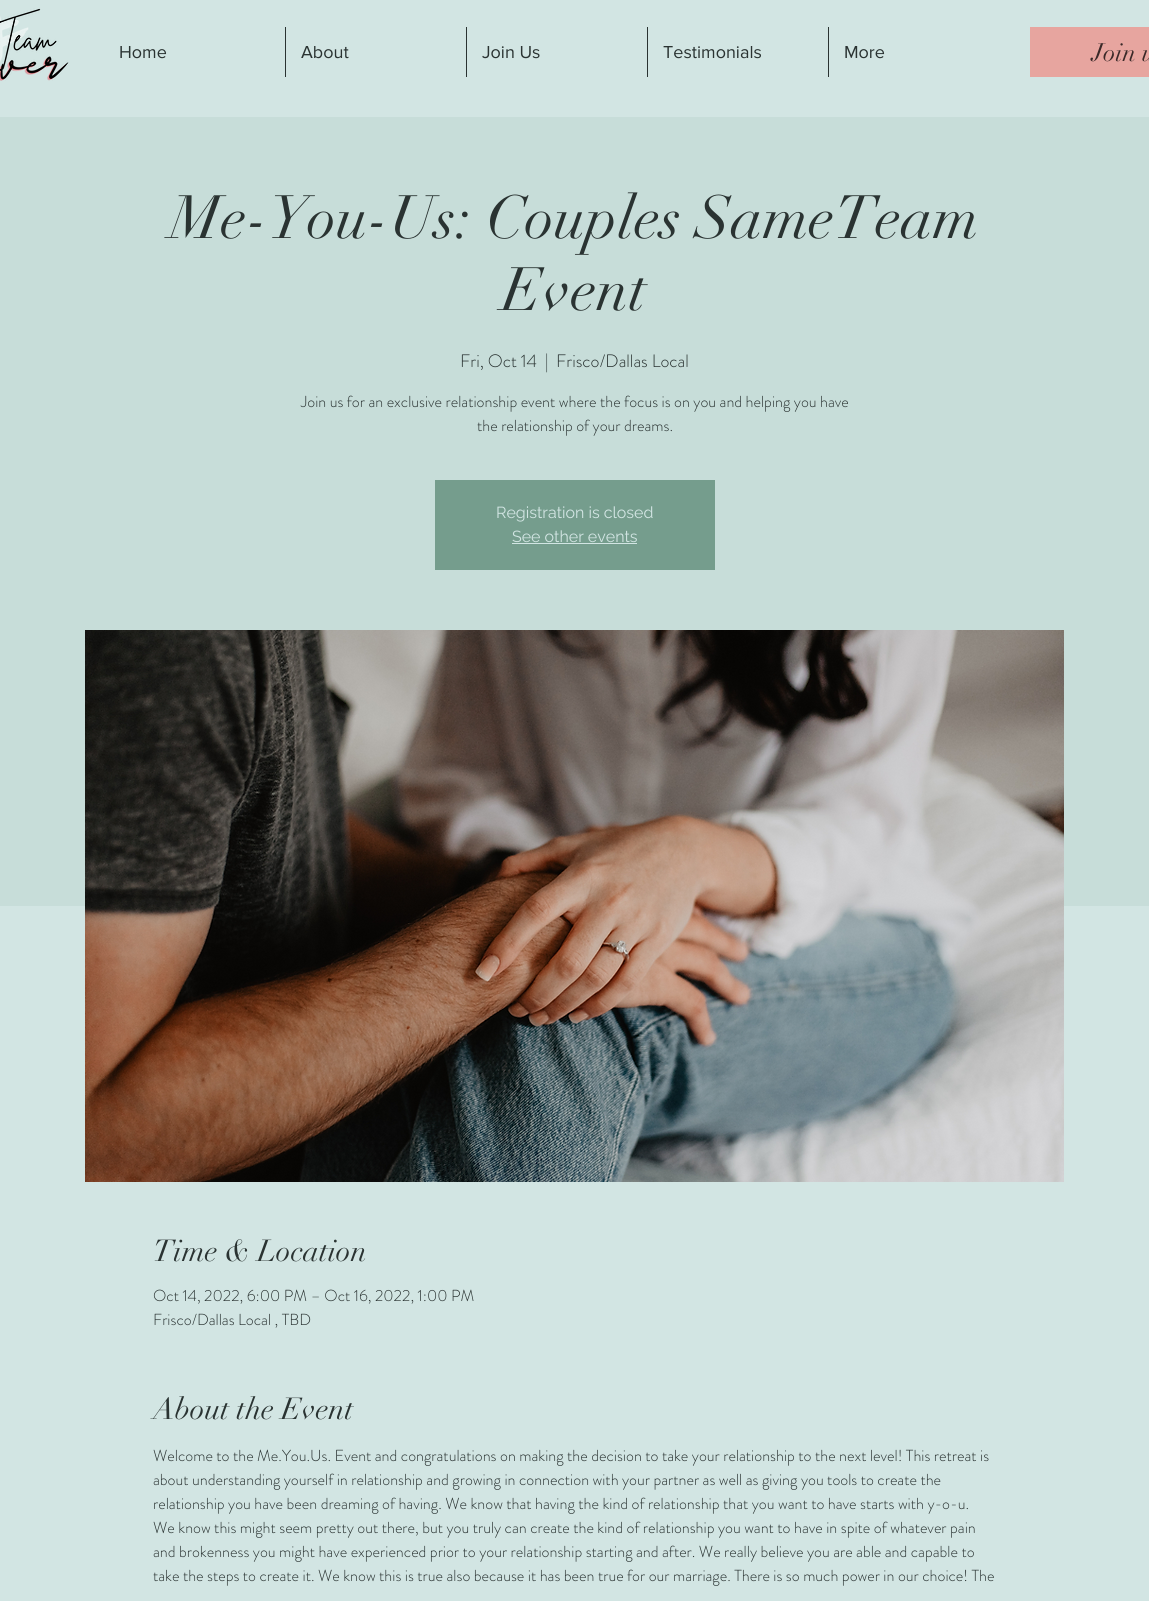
#include <cairo.h>
#include <math.h>
#include <stddef.h>

static cairo_t *c;
static void C(unsigned color){cairo_set_source_rgb(c, (color >> 16) / 255.0, (color >> 8 & 255) / 255.0, (color & 255) / 255.0);}
static void F(const char *family, double size, int italic, int bold){cairo_select_font_face(c, family, italic ? CAIRO_FONT_SLANT_ITALIC : CAIRO_FONT_SLANT_NORMAL,bold ? CAIRO_FONT_WEIGHT_BOLD : CAIRO_FONT_WEIGHT_NORMAL);cairo_set_font_size(c, size);}
static void T(double x, double y, const char *s){cairo_move_to(c, x, y);cairo_show_text(c, s);}
static void R(double x, double y, double w, double h){cairo_rectangle(c, x, y, w, h);cairo_fill(c);}
static void I(const char *path, double x, double y, double w, double h){cairo_surface_t *image = cairo_image_surface_create_from_png(path);cairo_save(c);cairo_set_source_surface(c, image, x, y);cairo_rectangle(c, x, y, w, h);cairo_fill(c);cairo_restore(c);cairo_surface_destroy(image);}
int main(void) {
cairo_surface_t *surface = cairo_image_surface_create(CAIRO_FORMAT_RGB24, 1149, 1601);
c = cairo_create(surface);
cairo_font_options_t *options = cairo_font_options_create();
cairo_font_options_set_hint_metrics(options, CAIRO_HINT_METRICS_OFF);
cairo_font_options_set_hint_style(options, CAIRO_HINT_STYLE_NONE);
cairo_set_font_options(c, options);
cairo_set_miter_limit(c, 4);
C(0xd2e5e3);
cairo_paint(c);
I("1.png",0,8,69,73);
F("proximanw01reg",18,0,0);
C(0x2a3332);
T(119,58,"Home");
R(285,27,1,50);
T(301,58,"About");
R(466,27,1,50);
T(482,58,"Join Us");
R(647,27,1,50);
T(663,58,"Testimonials");
R(828,27,1,50);
T(844,58,"More");
C(0xe7a59f);
R(1030,27,119,50);
F("didot",25,0,0);
C(0x3a2928);
T(1092,61,"Join u");
C(0xc7ddd9);
R(0,117,1149,789);
F("didot",60,0,0);
C(0x2a3332);
T(170,238,"Me-You-Us: Couples SameTeam");
T(502,310,"Event");
F("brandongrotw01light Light",18,0,0);
T(460,367,"Fri, Oct 14");
T(545,367,"|");
T(556,367,"Frisco/Dallas Local");
F("brandongrotw01light Light",16,0,0);
T(301,407,"Join us for an exclusive relationship event where the focus is on you and helping you have");
T(477,431,"the relationship of your dreams.");
C(0x759d8d);
R(435,480,280,90);
F("Raleway",16,0,0);
C(0xd2e5e3);
T(496,518,"Registration is closed");
T(512,542,"See other events");
R(512,543,125,1);
I("2.png",85,630,979,552);
F("didot",30,0,0);
C(0x2a3332);
T(153,1261,"Time & Location");
F("brandongrotw01light Light",16,0,0);
T(153,1301,"Oct 14, 2022, 6:00 PM – Oct 16, 2022, 1:00 PM");
T(153,1325,"Frisco/Dallas Local , TBD");
F("didot",30,0,0);
T(153,1419,"About the Event");
F("brandongrotw01light Light",16,0,0);
T(153,1461,"Welcome to the Me.You.Us. Event and congratulations on making the decision to take your relationship to the next level! This retreat is");
T(153,1485,"about understanding yourself in relationship and growing in connection with your partner as well as giving you tools to create the");
T(153,1509,"relationship you have been dreaming of having. We know that having the kind of relationship that you want to have starts with y-o-u.");
T(153,1533,"We know this might seem pretty out there, but you truly can create the kind of relationship you want to have in spite of whatever pain");
T(153,1557,"and brokenness you might have experienced prior to your relationship starting and after. We really believe you are able and capable to");
T(153,1581,"take the steps to create it. We know this is true also because it has been true for our marriage. There is so much power in our choice! The");
cairo_surface_write_to_png(surface, "o.png");
cairo_font_options_destroy(options);
cairo_destroy(c);
cairo_surface_destroy(surface);
return 0;
}
